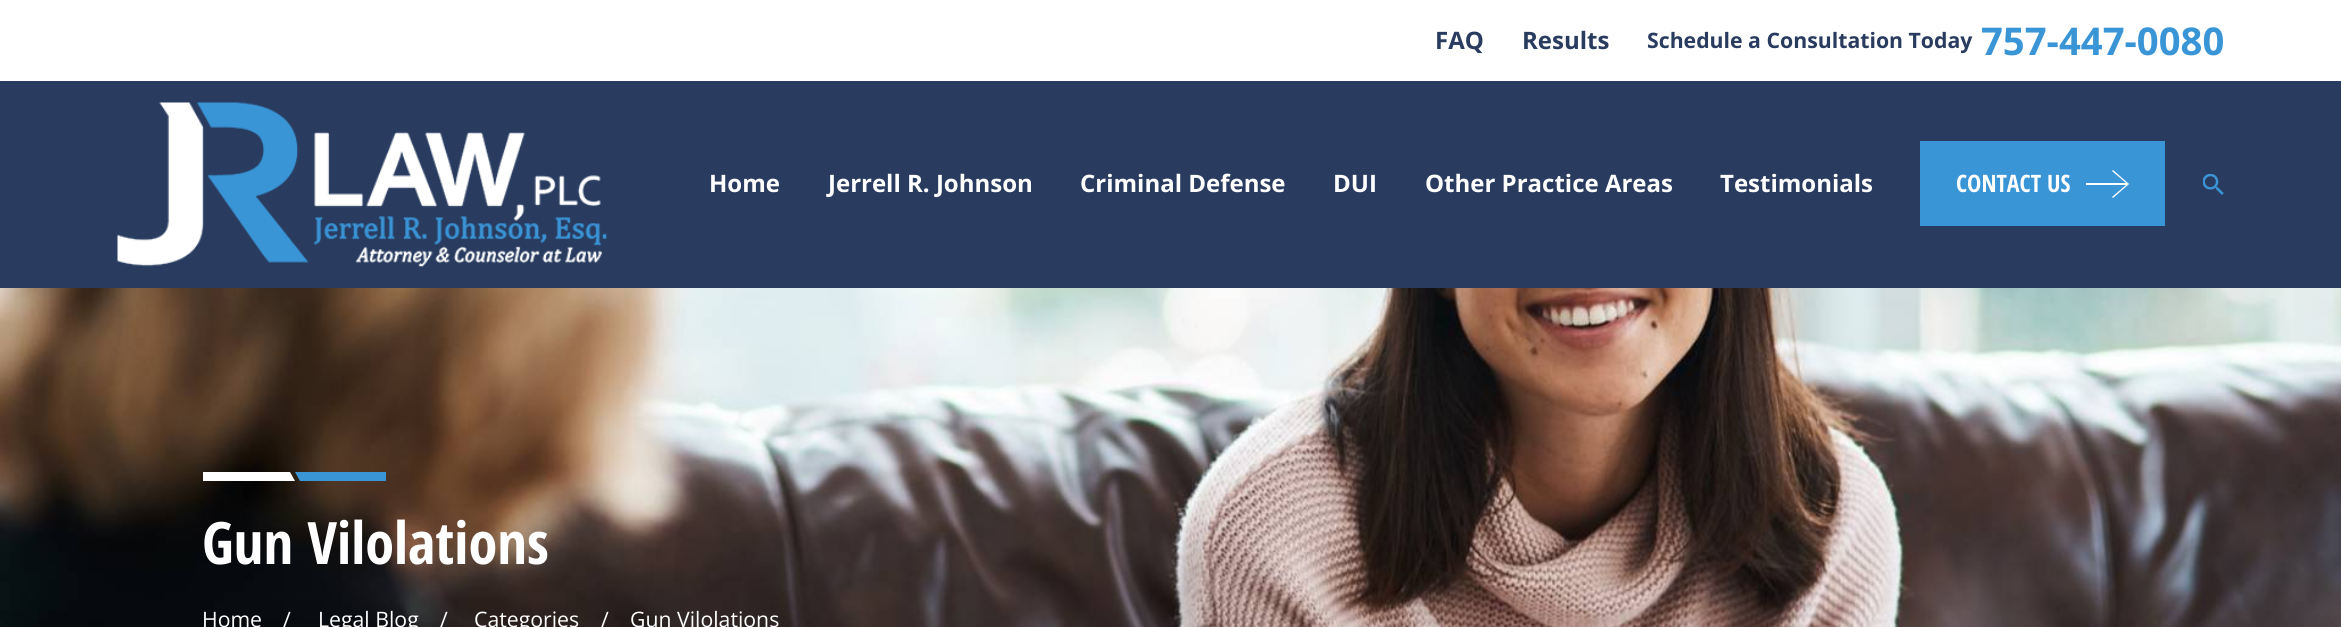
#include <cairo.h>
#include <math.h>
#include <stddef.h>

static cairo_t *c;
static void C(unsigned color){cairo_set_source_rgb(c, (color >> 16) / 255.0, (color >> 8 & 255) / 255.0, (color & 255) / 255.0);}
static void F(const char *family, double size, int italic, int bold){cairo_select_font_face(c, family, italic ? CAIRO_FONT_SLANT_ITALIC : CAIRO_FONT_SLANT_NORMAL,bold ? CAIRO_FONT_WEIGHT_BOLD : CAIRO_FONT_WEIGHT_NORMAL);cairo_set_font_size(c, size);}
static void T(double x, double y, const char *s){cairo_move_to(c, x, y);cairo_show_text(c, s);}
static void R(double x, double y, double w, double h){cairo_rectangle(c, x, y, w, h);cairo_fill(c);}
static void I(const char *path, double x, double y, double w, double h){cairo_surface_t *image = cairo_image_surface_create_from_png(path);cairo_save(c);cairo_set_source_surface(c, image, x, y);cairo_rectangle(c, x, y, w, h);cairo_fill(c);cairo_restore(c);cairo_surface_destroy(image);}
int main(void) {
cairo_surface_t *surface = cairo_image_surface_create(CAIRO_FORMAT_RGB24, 2341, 627);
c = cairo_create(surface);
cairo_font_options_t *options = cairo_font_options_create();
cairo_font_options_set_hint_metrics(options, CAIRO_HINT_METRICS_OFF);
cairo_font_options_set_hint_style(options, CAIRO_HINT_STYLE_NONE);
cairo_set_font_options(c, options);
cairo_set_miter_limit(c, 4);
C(0xffffff);
cairo_paint(c);
C(0x293c60);
R(0,81,2341,207);
F("Open Sans",24,0,1);
T(1435,49,"FAQ");
T(1522,49,"Results");
F("Open Sans",21.25,0,1);
T(1647,48,"Schedule a Consultation Today");
F("Open Sans",38.25,0,1);
C(0x3a95d7);
T(1981,55,"757-447-0080");
I("1.png",117,102,490,165);
F("Open Sans",24,0,1);
C(0xffffff);
T(709,192,"Home");
T(828,192,"Jerrell R. Johnson");
T(1080,192,"Criminal Defense");
T(1333,192,"DUI");
T(1425,192,"Other Practice Areas");
T(1720,192,"Testimonials");
C(0x3a95d7);
R(1920,141,245,85);
F("Open Sans Condensed",24,0,1);
C(0xffffff);
T(1956,192,"CONTACT US");
cairo_new_path(c);
cairo_move_to(c,2112,197);
cairo_line_to(c,2113,198);
cairo_line_to(c,2129,184);
cairo_line_to(c,2113,170);
cairo_line_to(c,2112,171);
cairo_line_to(c,2126,183);
cairo_line_to(c,2086,183);
cairo_line_to(c,2086,185);
cairo_line_to(c,2126,185);
cairo_close_path(c);
cairo_fill(c);
I("2.png",2203,174,21,21);
I("3.png",0,288,2341,339);
cairo_save(c);
cairo_rectangle(c,203,460,183,31);
cairo_clip(c);
C(0x3a95d7);
cairo_new_path(c);
cairo_move_to(c,387,472);
cairo_line_to(c,387,481);
cairo_line_to(c,300,481);
cairo_line_to(c,295,472);
cairo_close_path(c);
cairo_fill(c);
cairo_restore(c);
cairo_new_path(c);
cairo_move_to(c,295,481);
cairo_line_to(c,203,481);
cairo_line_to(c,203,472);
cairo_line_to(c,290,472);
cairo_close_path(c);
cairo_fill(c);
F("Open Sans Condensed",58.5,0,1);
T(202,564,"Gun Vilolations");
F("Open Sans",21.25,0,0);
T(202,627,"Home");
T(283,627,"/");
T(318,627,"Legal Blog");
T(440,627,"/");
T(474,627,"Categories");
T(601,627,"/");
T(630,627,"Gun Vilolations");
cairo_surface_write_to_png(surface, "o.png");
cairo_font_options_destroy(options);
cairo_destroy(c);
cairo_surface_destroy(surface);
return 0;
}
